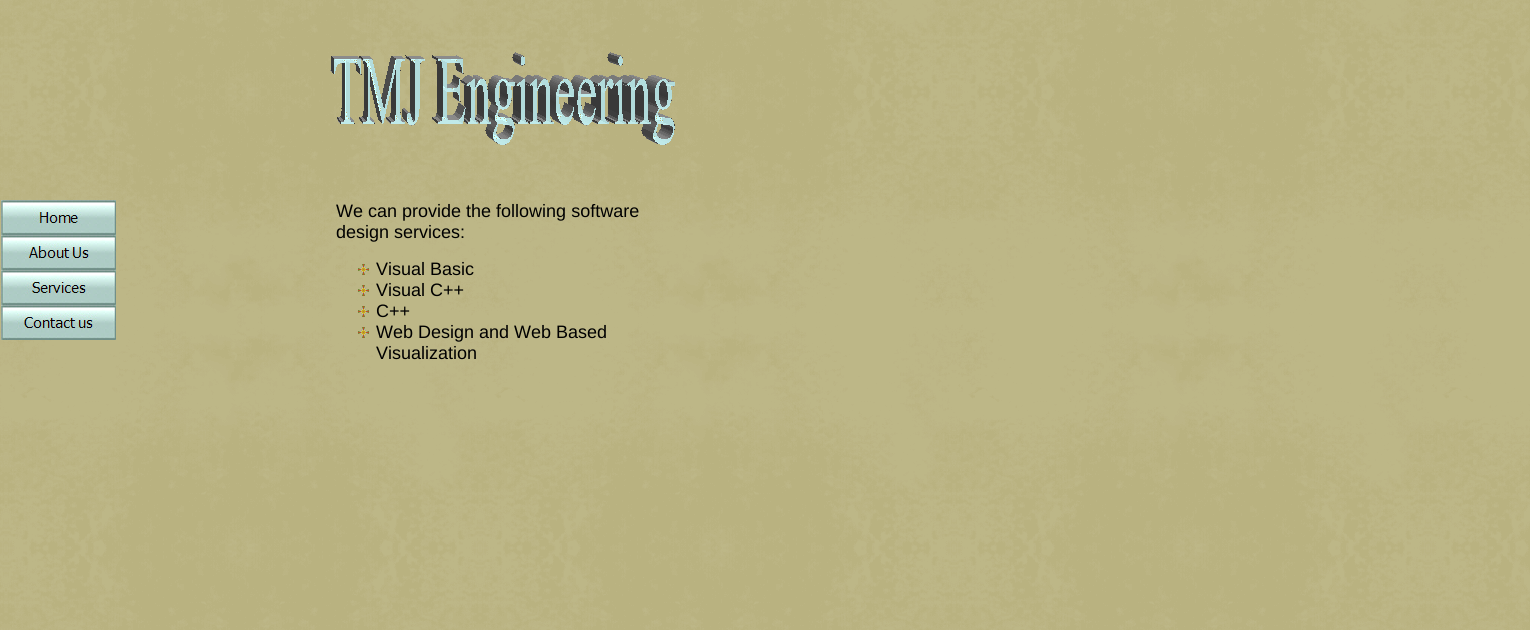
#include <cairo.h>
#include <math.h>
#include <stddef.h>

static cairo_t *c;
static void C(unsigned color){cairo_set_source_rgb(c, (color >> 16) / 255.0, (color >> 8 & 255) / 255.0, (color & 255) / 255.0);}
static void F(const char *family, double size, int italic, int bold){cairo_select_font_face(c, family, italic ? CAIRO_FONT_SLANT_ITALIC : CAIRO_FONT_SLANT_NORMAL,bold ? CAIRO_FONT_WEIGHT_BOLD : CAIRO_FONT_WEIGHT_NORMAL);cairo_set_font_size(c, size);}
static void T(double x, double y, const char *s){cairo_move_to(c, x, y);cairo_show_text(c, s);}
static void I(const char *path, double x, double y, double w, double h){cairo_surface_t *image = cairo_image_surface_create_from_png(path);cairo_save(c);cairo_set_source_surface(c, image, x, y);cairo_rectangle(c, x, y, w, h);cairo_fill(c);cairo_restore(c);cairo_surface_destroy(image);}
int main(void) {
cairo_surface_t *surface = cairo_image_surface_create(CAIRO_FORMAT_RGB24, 1530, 630);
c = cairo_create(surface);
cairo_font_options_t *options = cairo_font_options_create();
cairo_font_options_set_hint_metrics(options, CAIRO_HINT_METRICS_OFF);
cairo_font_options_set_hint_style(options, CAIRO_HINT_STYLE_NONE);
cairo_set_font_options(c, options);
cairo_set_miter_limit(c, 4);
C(0xffffff);
cairo_paint(c);
I("1.png",0,0,1530,630);
I("2.png",330,52,345,93);
I("3.png",1,200,115,35);
I("4.png",1,235,115,35);
I("5.png",1,270,115,35);
I("6.png",1,305,115,35);
F("Liberation Sans",18,0,0);
C(0x000000);
T(336,217,"We can provide the following software");
T(336,238,"design services:");
I("7.png",358,264,11,11);
T(376,275,"Visual Basic");
I("8.png",358,285,11,11);
T(376,296,"Visual C++");
I("9.png",358,306,11,11);
T(376,317,"C++");
I("9.png",358,327,11,11);
T(376,338,"Web Design and Web Based");
T(376,359,"Visualization");
cairo_surface_write_to_png(surface, "o.png");
cairo_font_options_destroy(options);
cairo_destroy(c);
cairo_surface_destroy(surface);
return 0;
}
